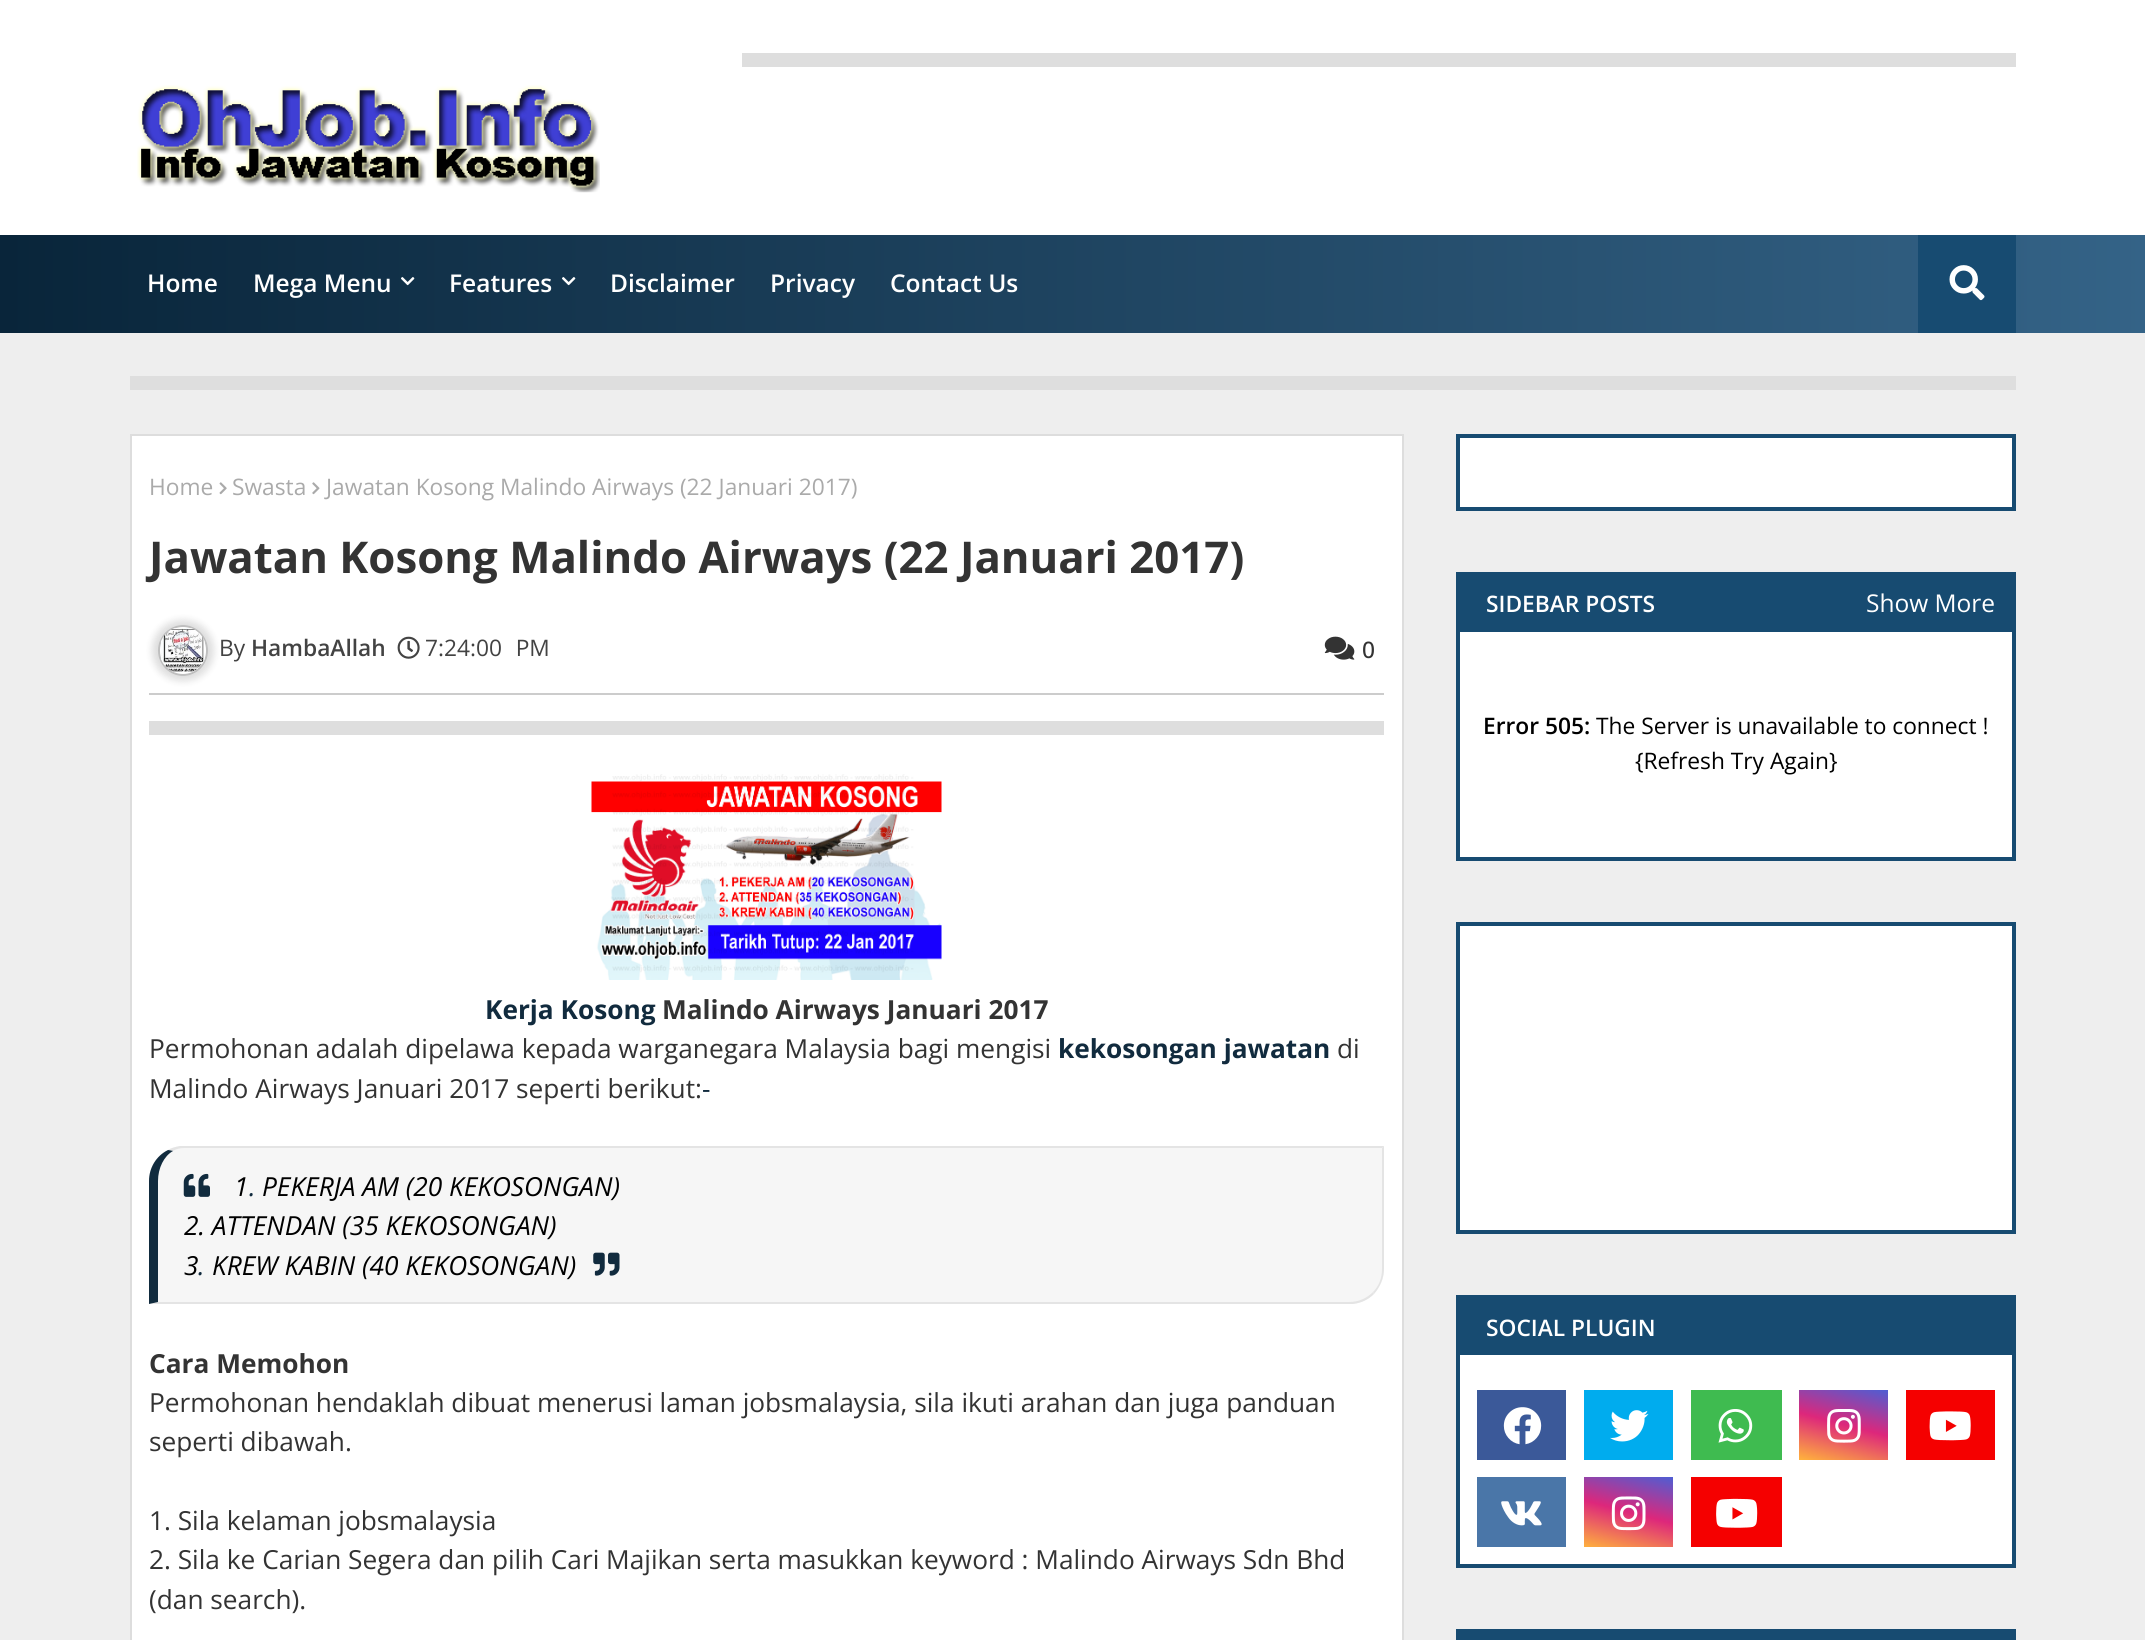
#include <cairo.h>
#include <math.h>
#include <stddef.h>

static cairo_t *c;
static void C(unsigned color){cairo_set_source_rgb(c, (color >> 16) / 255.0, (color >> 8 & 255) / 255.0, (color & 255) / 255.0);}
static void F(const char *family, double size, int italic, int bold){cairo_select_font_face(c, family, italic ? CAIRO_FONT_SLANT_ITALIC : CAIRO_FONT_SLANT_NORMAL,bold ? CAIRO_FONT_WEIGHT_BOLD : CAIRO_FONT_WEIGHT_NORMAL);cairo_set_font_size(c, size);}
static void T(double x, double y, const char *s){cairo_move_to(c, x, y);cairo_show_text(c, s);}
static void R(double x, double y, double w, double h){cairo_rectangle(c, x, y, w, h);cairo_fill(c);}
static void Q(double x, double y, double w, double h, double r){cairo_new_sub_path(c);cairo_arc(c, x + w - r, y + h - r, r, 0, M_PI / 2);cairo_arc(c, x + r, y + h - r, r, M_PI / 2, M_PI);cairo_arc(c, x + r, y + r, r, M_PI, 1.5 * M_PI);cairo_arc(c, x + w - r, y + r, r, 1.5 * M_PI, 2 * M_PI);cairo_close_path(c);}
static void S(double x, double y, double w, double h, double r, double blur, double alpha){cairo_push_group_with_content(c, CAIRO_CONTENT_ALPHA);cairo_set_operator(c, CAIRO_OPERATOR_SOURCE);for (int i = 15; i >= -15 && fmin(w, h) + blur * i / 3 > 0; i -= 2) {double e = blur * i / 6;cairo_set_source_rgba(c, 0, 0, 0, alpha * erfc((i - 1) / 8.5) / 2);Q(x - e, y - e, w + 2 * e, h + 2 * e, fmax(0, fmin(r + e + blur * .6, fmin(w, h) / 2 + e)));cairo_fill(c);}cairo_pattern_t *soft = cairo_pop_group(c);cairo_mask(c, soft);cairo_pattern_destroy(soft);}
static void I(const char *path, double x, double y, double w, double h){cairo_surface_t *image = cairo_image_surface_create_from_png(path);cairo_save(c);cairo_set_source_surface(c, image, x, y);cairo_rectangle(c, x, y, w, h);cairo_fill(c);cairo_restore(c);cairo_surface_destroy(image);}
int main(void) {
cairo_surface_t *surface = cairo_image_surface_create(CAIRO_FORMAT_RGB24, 2145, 1640);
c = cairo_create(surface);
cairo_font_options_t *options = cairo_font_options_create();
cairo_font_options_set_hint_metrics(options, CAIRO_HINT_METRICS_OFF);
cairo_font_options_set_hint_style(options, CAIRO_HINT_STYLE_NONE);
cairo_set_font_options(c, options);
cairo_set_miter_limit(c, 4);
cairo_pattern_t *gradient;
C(0xeeeeee);
cairo_paint(c);
C(0xffffff);
R(0,0,2145,235);
C(0xdedede);
R(742,53,1274,14);
I("1.png",137,85,463,108);
gradient = cairo_pattern_create_linear(0,284,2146,283);
cairo_pattern_add_color_stop_rgba(gradient,0,0.035,0.145,0.227,1);
cairo_pattern_add_color_stop_rgba(gradient,1,0.204,0.388,0.529,1);
cairo_set_source(c,gradient);
cairo_pattern_destroy(gradient);
R(0,235,2145,98);
F("Open Sans SemiBold",24.5,0,0);
C(0xffffff);
T(147,292,"Home");
T(253,292,"Mega Menu");
I("2.png",401,277,14,9);
T(449,292,"Features");
I("3.png",562,277,14,9);
T(610,292,"Disclaimer");
T(770,292,"Privacy");
T(890,292,"Contact Us");
C(0x174b71);
R(1918,235,98,98);
I("4.png",1949,265,36,36);
C(0xdedede);
R(130,376,1886,14);
C(0xffffff);
cairo_rectangle(c,131,435,1272,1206);
cairo_fill_preserve(c);
C(0xdddddd);
cairo_stroke(c);
F("Open Sans",22.75,0,0);
C(0xaaaaaa);
T(149,495,"Home");
I("5.png",219,482,8,13);
T(232,495,"Swasta");
I("6.png",312,482,8,13);
T(326,495,"Jawatan Kosong Malindo Airways (22 Januari 2017)");
F("Open Sans",43.75,0,1);
C(0x333333);
T(149,573,"Jawatan Kosong Malindo Airways (22 Januari 2017)");
C(0xcccccc);
R(149,693,1235,2);
cairo_save(c);
cairo_set_fill_rule(c,CAIRO_FILL_RULE_EVEN_ODD);
cairo_new_path(c);
cairo_move_to(c,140,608);
cairo_line_to(c,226,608);
cairo_line_to(c,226,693);
cairo_line_to(c,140,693);
cairo_close_path(c);
cairo_move_to(c,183,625);
cairo_curve_to(c,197,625,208,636,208,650);
cairo_line_to(c,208,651);
cairo_curve_to(c,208,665,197,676,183,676);
cairo_curve_to(c,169,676,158,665,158,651);
cairo_line_to(c,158,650);
cairo_curve_to(c,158,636,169,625,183,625);
cairo_close_path(c);
cairo_clip(c);
C(0x000000);
S(152,620,62,61,30.5,3.5,.13);
cairo_restore(c);
Q(159,626,48,49,24);
cairo_set_source_rgba(c,0,0,0,0.25);
cairo_stroke(c);
I("7.png",161,628,44,44);
F("Open Sans",22.75,0,0);
C(0x434343);
T(219,656,"By");
F("Open Sans SemiBold",22.75,0,0);
T(251,656,"HambaAllah");
I("8.png",397,636,23,23);
F("Open Sans",22.75,0,0);
T(425,656,"7:24:00 PM");
I("9.png",1324,636,31,24);
F("Open Sans Medium",22.75,0,0);
C(0x333333);
T(1362,658,"0");
C(0xdedede);
R(149,721,1235,14);
I("10.png",591,774,351,206);
F("Open Sans",26.25,0,1);
C(0x112b3e);
T(485,1019,"Kerja Kosong");
C(0x333333);
T(662,1019,"Malindo Airways Januari 2017");
F("Open Sans",26.25,0,0);
T(149,1058,"Permohonan adalah dipelawa kepada warganegara Malaysia bagi mengisi");
F("Open Sans",26.25,0,1);
C(0x112b3e);
T(1058,1058,"kekosongan jawatan");
F("Open Sans",26.25,0,0);
C(0x333333);
T(1337,1058,"di");
T(149,1098,"Malindo Airways Januari 2017 seperti berikut:");
C(0x112b3e);
T(702,1098,"-");
C(0xf6f6f6);
cairo_new_path(c);
cairo_move_to(c,184,1146);
cairo_line_to(c,1384,1146);
cairo_line_to(c,1384,1269);
cairo_curve_to(c,1384,1288.5,1368.5,1304,1349,1304);
cairo_line_to(c,149,1304);
cairo_line_to(c,149,1181);
cairo_curve_to(c,149,1161.5,164.5,1146,184,1146);
cairo_close_path(c);
cairo_fill(c);
C(0xe4e4e4);
cairo_new_path(c);
cairo_move_to(c,184,1148);
cairo_curve_to(c,180,1148,176,1149,173,1151);
cairo_line_to(c,168,1150);
cairo_curve_to(c,171,1148,175,1147,180,1146);
cairo_line_to(c,1384,1146);
cairo_line_to(c,1382,1148);
cairo_close_path(c);
cairo_fill(c);
cairo_new_path(c);
cairo_move_to(c,1384,1146);
cairo_line_to(c,1384,1269);
cairo_curve_to(c,1384,1278,1380,1287,1374,1294);
cairo_line_to(c,1373,1292);
cairo_curve_to(c,1379,1286,1382,1278,1382,1269);
cairo_line_to(c,1382,1148);
cairo_close_path(c);
cairo_fill(c);
cairo_new_path(c);
cairo_move_to(c,149,1304);
cairo_line_to(c,158,1302);
cairo_line_to(c,1349,1302);
cairo_curve_to(c,1359,1302,1367,1298,1373,1292);
cairo_line_to(c,1374,1294);
cairo_curve_to(c,1369,1299,1362,1303,1353,1304);
cairo_close_path(c);
cairo_fill(c);
C(0x112b3e);
cairo_new_path(c);
cairo_move_to(c,149,1304);
cairo_line_to(c,149,1181);
cairo_curve_to(c,149,1168,156,1156,168,1150);
cairo_line_to(c,173,1151);
cairo_curve_to(c,164,1156,158,1168,158,1181);
cairo_line_to(c,158,1302);
cairo_close_path(c);
cairo_fill(c);
I("11.png",183,1173,27,24);
F("Open Sans",26.25,1,0);
C(0x000000);
T(234,1196,"1");
C(0x112b3e);
T(249,1196,".");
C(0x000000);
T(262,1196,"PEKERJA AM (20 KEKOSONGAN)");
T(184,1235,"2. ATTENDAN (35 KEKOSONGAN)");
T(184,1275,"3");
C(0x112b3e);
T(198,1275,".");
C(0x000000);
T(212,1275,"KREW KABIN (40 KEKOSONGAN)");
I("12.png",593,1252,27,24);
F("Open Sans",26.25,0,1);
C(0x333333);
T(149,1373,"Cara Memohon");
F("Open Sans",26.25,0,0);
T(149,1412,"Permohonan hendaklah dibuat menerusi laman jobsmalaysia, sila ikuti arahan dan juga panduan");
T(149,1451,"seperti dibawah.");
T(149,1530,"1. Sila kelaman jobsmalaysia");
T(149,1569,"2. Sila ke Carian Segera dan pilih Cari Majikan serta masukkan keyword : Malindo Airways Sdn Bhd");
T(149,1609,"(dan search).");
C(0xffffff);
cairo_rectangle(c,1458,436,556,73);
cairo_fill_preserve(c);
C(0x174b71);
cairo_set_line_width(c,4);
cairo_stroke(c);
C(0xffffff);
R(1460,632,552,225);
cairo_rectangle(c,1458,574,556,285);
C(0x174b71);
cairo_stroke(c);
R(1460,576,552,56);
F("Open Sans SemiBold",22.75,0,0);
C(0xffffff);
T(1486,612,"SIDEBAR POSTS");
F("Open Sans",24.5,0,0);
T(1866,612,"Show More");
F("Open Sans SemiBold",22.75,0,0);
C(0x000000);
T(1483,734,"Error 505:");
F("Open Sans",22.75,0,0);
T(1596,734,"The Server is unavailable to connect !");
T(1635,769,"{Refresh Try Again}");
C(0xffffff);
cairo_rectangle(c,1458,924,556,308);
cairo_fill_preserve(c);
C(0x174b71);
cairo_stroke(c);
C(0xffffff);
R(1460,1355,552,209);
cairo_rectangle(c,1458,1297,556,269);
C(0x174b71);
cairo_stroke(c);
R(1460,1299,552,56);
F("Open Sans SemiBold",22.75,0,0);
C(0xffffff);
T(1486,1336,"SOCIAL PLUGIN");
C(0x3b5999);
R(1477,1390,89,70);
I("13.png",1503,1407,39,38);
C(0x00acee);
R(1584,1390,89,70);
I("14.png",1610,1410,39,32);
C(0x3fbb50);
R(1691,1390,91,70);
I("15.png",1718,1409,35,34);
gradient = cairo_pattern_create_linear(1832,1468,1855,1381);
cairo_pattern_add_color_stop_rgba(gradient,0,1,0.694,0.239,1);
cairo_pattern_add_color_stop_rgba(gradient,.5,0.867,0.153,0.482,1);
cairo_pattern_add_color_stop_rgba(gradient,1,0.302,0.369,0.831,1);
cairo_set_source(c,gradient);
cairo_pattern_destroy(gradient);
R(1799,1390,89,70);
I("16.png",1827,1409,34,34);
C(0xf50000);
R(1906,1390,89,70);
I("17.png",1929,1411,42,30);
C(0x4a76a8);
R(1477,1477,89,70);
I("18.png",1501,1501,41,25);
gradient = cairo_pattern_create_linear(1617,1556,1640,1468);
cairo_pattern_add_color_stop_rgba(gradient,0,1,0.694,0.239,1);
cairo_pattern_add_color_stop_rgba(gradient,.5,0.867,0.153,0.482,1);
cairo_pattern_add_color_stop_rgba(gradient,1,0.302,0.369,0.831,1);
cairo_set_source(c,gradient);
cairo_pattern_destroy(gradient);
R(1584,1477,89,70);
I("19.png",1611,1496,35,35);
C(0xf50000);
R(1691,1477,91,70);
I("20.png",1716,1498,42,30);
cairo_rectangle(c,1458,1631,556,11);
C(0x174b71);
cairo_stroke(c);
R(1460,1633,553,7);
cairo_surface_write_to_png(surface, "o.png");
cairo_font_options_destroy(options);
cairo_destroy(c);
cairo_surface_destroy(surface);
return 0;
}
